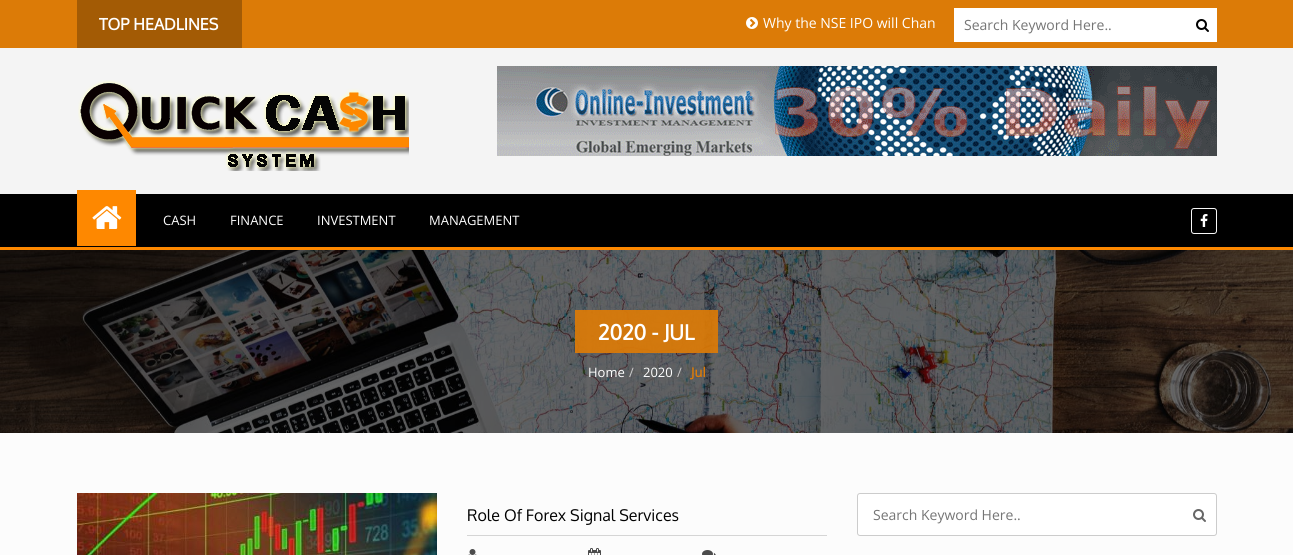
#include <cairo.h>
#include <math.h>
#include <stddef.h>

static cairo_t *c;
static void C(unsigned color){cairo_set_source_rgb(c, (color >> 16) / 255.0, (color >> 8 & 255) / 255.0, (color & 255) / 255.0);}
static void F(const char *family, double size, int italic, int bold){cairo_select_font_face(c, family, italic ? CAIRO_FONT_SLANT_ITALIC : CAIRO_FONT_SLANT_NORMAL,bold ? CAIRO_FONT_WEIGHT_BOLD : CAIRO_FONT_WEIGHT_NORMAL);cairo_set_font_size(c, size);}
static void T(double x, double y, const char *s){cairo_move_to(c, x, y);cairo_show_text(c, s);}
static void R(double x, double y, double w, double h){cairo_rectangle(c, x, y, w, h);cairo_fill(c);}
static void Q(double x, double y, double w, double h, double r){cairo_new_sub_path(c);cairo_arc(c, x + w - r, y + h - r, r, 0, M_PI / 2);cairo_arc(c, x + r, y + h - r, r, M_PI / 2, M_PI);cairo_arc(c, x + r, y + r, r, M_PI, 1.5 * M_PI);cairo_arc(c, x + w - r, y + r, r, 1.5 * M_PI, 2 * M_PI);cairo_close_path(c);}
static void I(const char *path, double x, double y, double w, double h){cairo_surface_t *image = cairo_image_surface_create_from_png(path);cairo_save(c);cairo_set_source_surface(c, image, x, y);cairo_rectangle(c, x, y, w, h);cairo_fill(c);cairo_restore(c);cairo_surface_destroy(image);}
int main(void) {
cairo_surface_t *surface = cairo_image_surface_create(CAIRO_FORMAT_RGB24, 1293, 555);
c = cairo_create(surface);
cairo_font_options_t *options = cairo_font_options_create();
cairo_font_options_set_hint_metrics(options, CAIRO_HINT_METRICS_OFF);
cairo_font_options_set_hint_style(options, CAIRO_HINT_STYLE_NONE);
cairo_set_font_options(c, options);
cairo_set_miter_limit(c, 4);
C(0xfcfcfc);
cairo_paint(c);
C(0xdc7b07);
R(0,0,1293,48);
C(0xa35b05);
R(77,0,165,48);
F("Oxygen",16,0,1);
C(0xffffff);
T(99,30,"TOP HEADLINES");
I("1.png",746,17,12,12);
F("Open Sans",14,0,0);
T(763,28,"Why the NSE IPO will Chan");
R(954,8,263,34);
C(0x757575);
T(964,30,"Search Keyword Here..");
I("2.png",1196,19,13,13);
C(0xf4f4f4);
R(0,48,1293,146);
I("3.png",78,80,331,91);
I("4.png",497,66,720,90);
C(0x000000);
R(0,194,1293,53);
C(0xfe8800);
R(0,247,1293,3);
R(77,190,59,56);
I("5.png",92,206,30,23);
F("Open Sans",13,0,0);
C(0xffffff);
T(163,225,"CASH");
T(230,225,"FINANCE");
T(317,225,"INVESTMENT");
T(429,225,"MANAGEMENT");
Q(1191.5,208.5,25,25,2.5);
C(0xf7f7f7);
cairo_set_line_width(c,1);
cairo_stroke(c);
I("6.png",1200,214,8,13);
I("7.png",0,250,1293,183);
cairo_set_source_rgba(c,0.863,0.482,0.027,0.92);
R(575,310,143,43);
F("Oxygen",21,0,1);
C(0xffffff);
T(598,340,"2020 - JUL");
F("Open Sans",13,0,0);
T(588,377,"Home");
C(0xcccccc);
T(629,377,"/");
C(0xffffff);
T(643,377,"2020");
C(0xcccccc);
T(677,377,"/");
F("Open Sans",13,0,1);
C(0xdc7b07);
T(691,377,"Jul");
I("8.png",77,493,360,62);
F("Oxygen",16,0,0);
C(0x000000);
T(467,521,"Role Of Forex Signal Services");
C(0xd5d5d5);
R(467,535,360,1);
I("9.png",468,549,9,6);
I("10.png",588,548,13,7);
I("11.png",702,550,14,5);
C(0xffffff);
Q(857.5,493.5,359,42,2.5);
cairo_fill_preserve(c);
C(0xcccccc);
cairo_stroke(c);
F("Open Sans",14,0,0);
C(0x757575);
T(873,520,"Search Keyword Here..");
I("12.png",1193,509,13,13);
cairo_surface_write_to_png(surface, "o.png");
cairo_font_options_destroy(options);
cairo_destroy(c);
cairo_surface_destroy(surface);
return 0;
}
